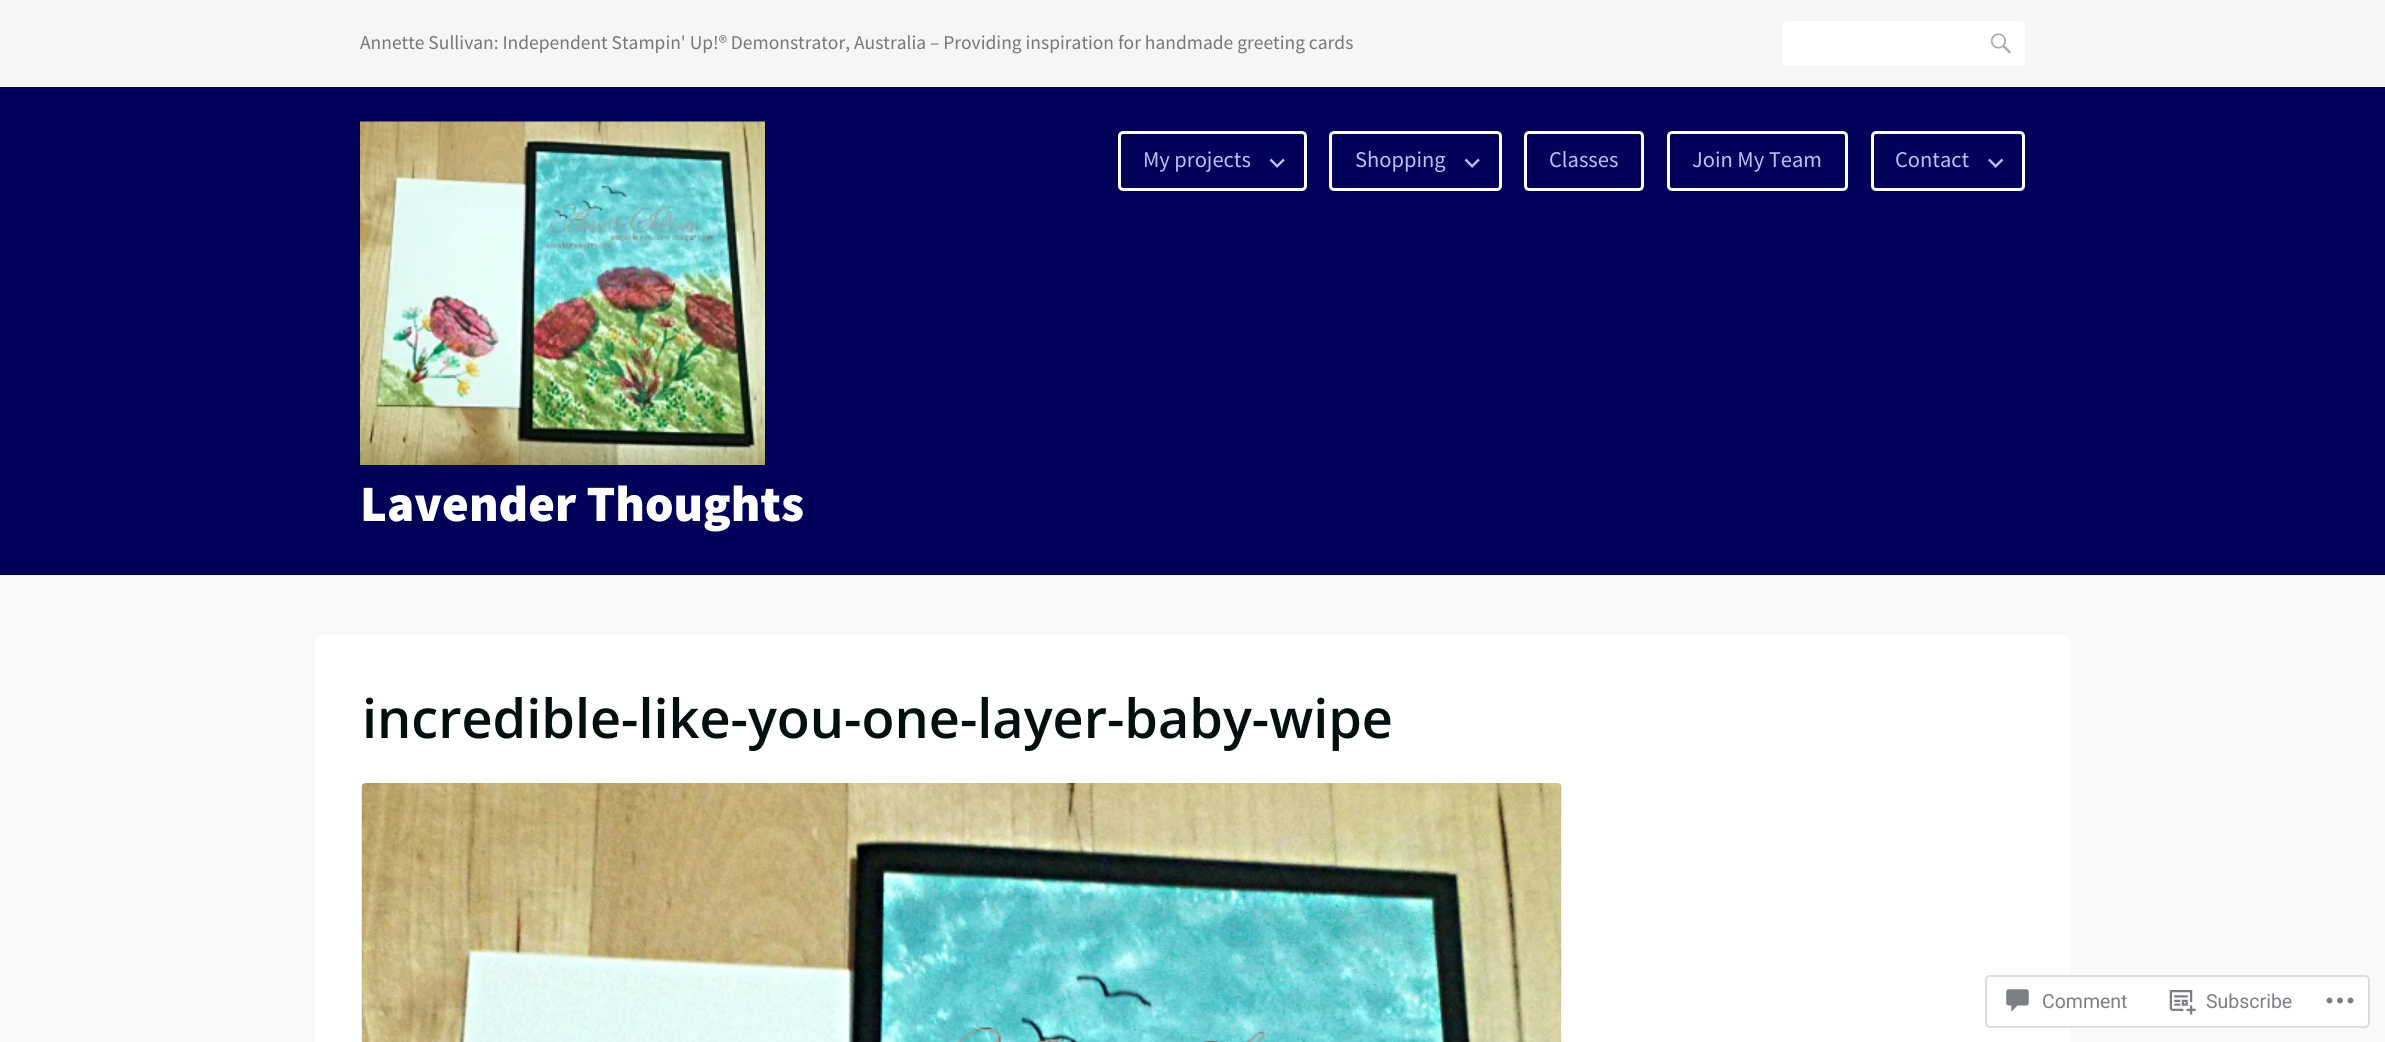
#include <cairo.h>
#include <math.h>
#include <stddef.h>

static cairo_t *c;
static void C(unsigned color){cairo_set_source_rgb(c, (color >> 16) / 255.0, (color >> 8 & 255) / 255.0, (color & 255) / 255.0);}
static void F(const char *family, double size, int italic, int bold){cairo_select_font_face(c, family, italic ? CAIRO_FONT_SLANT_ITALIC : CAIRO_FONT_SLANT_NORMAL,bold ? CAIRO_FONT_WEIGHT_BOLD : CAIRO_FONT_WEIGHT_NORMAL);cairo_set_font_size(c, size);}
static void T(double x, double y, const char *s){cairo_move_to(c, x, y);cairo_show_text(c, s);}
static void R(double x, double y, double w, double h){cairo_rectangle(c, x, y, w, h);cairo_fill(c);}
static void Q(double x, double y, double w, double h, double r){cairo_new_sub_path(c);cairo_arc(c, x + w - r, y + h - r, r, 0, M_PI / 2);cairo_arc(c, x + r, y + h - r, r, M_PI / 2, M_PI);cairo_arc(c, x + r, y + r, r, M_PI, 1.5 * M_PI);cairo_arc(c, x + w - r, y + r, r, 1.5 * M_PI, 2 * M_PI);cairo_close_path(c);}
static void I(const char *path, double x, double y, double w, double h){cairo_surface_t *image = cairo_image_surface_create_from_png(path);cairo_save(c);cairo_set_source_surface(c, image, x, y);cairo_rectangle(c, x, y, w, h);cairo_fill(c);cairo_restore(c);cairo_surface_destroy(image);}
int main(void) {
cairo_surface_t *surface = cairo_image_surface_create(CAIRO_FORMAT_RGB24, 2385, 1042);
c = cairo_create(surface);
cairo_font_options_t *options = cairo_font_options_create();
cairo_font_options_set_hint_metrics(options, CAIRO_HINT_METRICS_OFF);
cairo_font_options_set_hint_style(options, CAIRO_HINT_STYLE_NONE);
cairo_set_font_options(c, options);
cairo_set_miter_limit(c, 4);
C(0xf9f9f9);
cairo_paint(c);
C(0xf6f6f6);
R(0,0,2385,87);
F("Source Sans Pro",19.5,0,0);
C(0x777777);
T(360,49,"Annette Sullivan: Independent Stampin' Up!® Demonstrator, Australia – Providing inspiration for handmade greeting cards");
C(0xffffff);
cairo_new_path(c);
cairo_move_to(c,1787,21);
cairo_line_to(c,1977,21);
cairo_line_to(c,1977,66);
cairo_line_to(c,1787,66);
cairo_curve_to(c,1784,66,1782,64,1782,61);
cairo_line_to(c,1782,26);
cairo_curve_to(c,1782,23,1784,21,1787,21);
cairo_close_path(c);
cairo_fill(c);
cairo_new_path(c);
cairo_move_to(c,1977,21);
cairo_line_to(c,2020,21);
cairo_curve_to(c,2023,21,2025,23,2025,26);
cairo_line_to(c,2025,61);
cairo_curve_to(c,2025,64,2023,66,2020,66);
cairo_line_to(c,1977,66);
cairo_close_path(c);
cairo_fill(c);
I("1.png",1990,33,21,21);
C(0x000158);
R(0,87,2385,488);
Q(1119.5,132.5,186,57,3.5);
C(0xffffff);
cairo_set_line_width(c,3);
cairo_stroke(c);
F("Source Sans Pro",22.5,0,0);
C(0xbdbff9);
T(1143,167,"My projects");
I("2.png",1269,158,16,10);
Q(1330.5,132.5,170,57,3.5);
C(0xffffff);
cairo_stroke(c);
C(0xbdbff9);
T(1355,167,"Shopping");
I("2.png",1464,158,16,10);
Q(1525.5,132.5,117,57,3.5);
C(0xffffff);
cairo_stroke(c);
C(0xbdbff9);
T(1549,167,"Classes");
Q(1668.5,132.5,178,57,3.5);
C(0xffffff);
cairo_stroke(c);
C(0xbdbff9);
T(1692,167,"Join My Team");
Q(1872.5,132.5,151,57,3.5);
C(0xffffff);
cairo_stroke(c);
C(0xbdbff9);
T(1895,167,"Contact");
I("3.png",1988,158,16,10);
I("4.png",360,121,405,344);
F("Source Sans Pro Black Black",51,0,0);
C(0xffffff);
T(360,521,"Lavender Thoughts");
Q(315,635,1755,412,5);
cairo_fill(c);
F("Open Sans SemiBold",54,0,0);
C(0x010f0f);
T(362,738,"incredible-like-you-one-layer-baby-wipe");
I("5.png",361,783,1201,259);
cairo_set_source_rgba(c,1,1,1,0.98);
Q(1985,975,385,53,5);
cairo_fill(c);
Q(1986,976,383,51,4);
cairo_set_source_rgba(c,0.863,0.863,0.871,0.98);
cairo_set_line_width(c,2);
cairo_stroke(c);
I("6.png",2006,989,23,23);
F("Roboto",19.5,0,0);
C(0x7b7f84);
T(2042,1008,"Comment");
I("7.png",2169,990,27,25);
T(2206,1008,"Subscribe");
I("8.png",2326,997,28,7);
cairo_surface_write_to_png(surface, "o.png");
cairo_font_options_destroy(options);
cairo_destroy(c);
cairo_surface_destroy(surface);
return 0;
}
